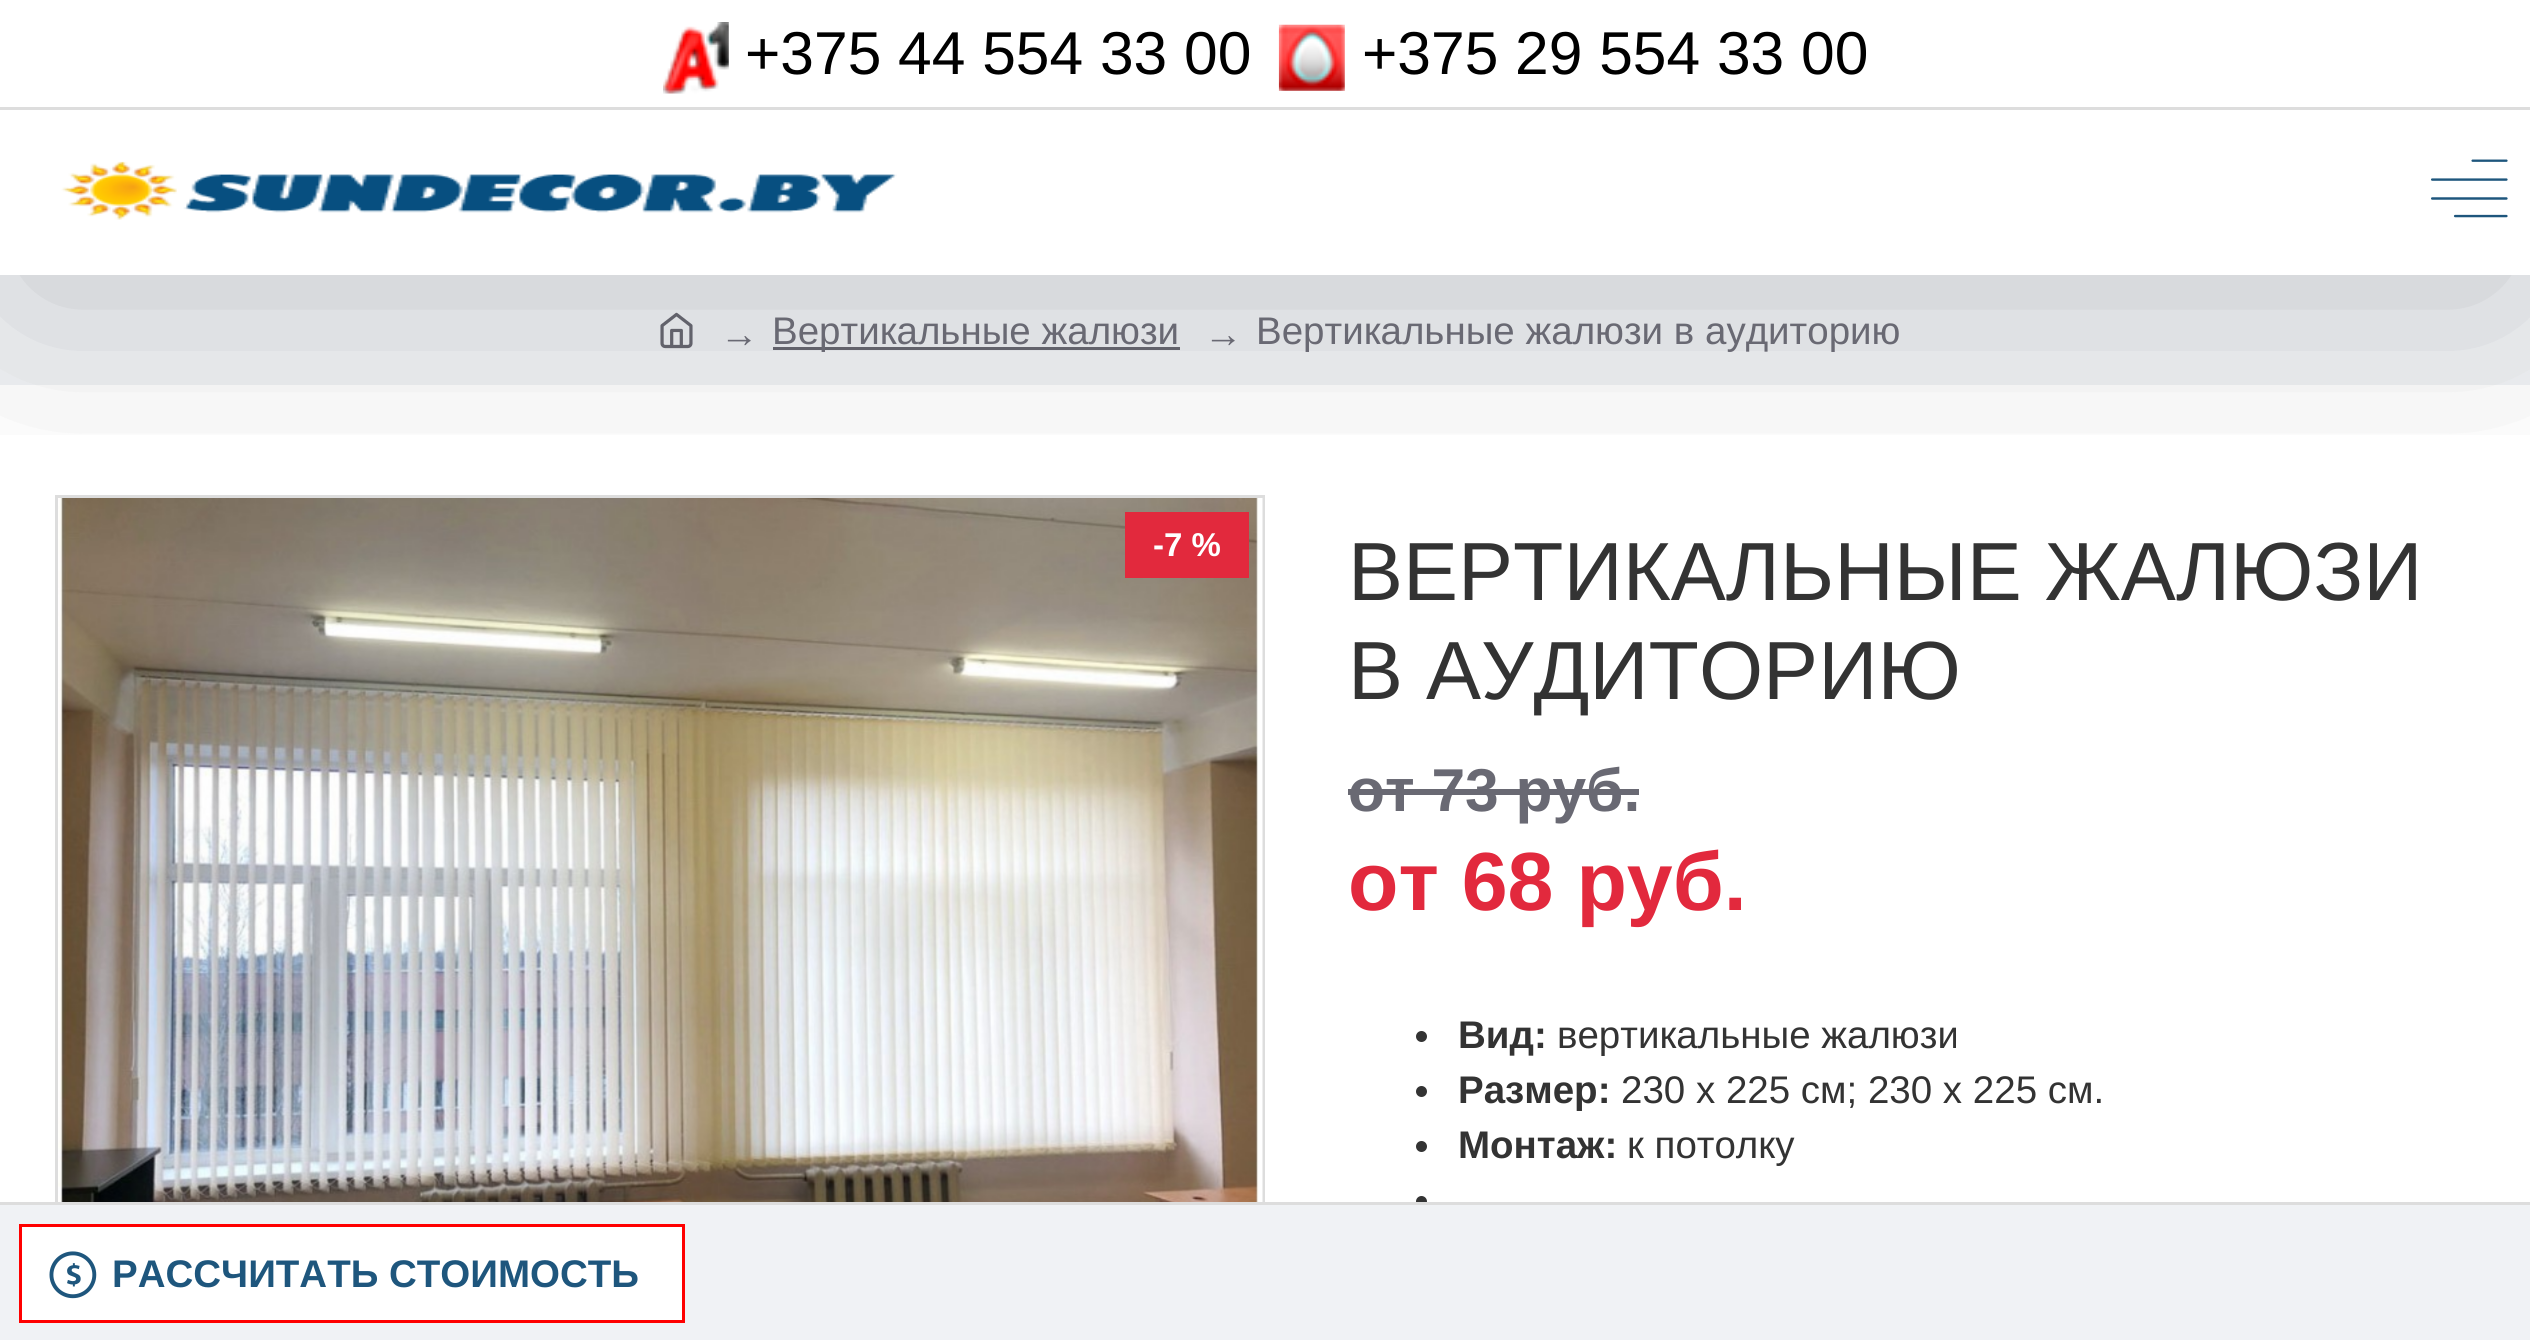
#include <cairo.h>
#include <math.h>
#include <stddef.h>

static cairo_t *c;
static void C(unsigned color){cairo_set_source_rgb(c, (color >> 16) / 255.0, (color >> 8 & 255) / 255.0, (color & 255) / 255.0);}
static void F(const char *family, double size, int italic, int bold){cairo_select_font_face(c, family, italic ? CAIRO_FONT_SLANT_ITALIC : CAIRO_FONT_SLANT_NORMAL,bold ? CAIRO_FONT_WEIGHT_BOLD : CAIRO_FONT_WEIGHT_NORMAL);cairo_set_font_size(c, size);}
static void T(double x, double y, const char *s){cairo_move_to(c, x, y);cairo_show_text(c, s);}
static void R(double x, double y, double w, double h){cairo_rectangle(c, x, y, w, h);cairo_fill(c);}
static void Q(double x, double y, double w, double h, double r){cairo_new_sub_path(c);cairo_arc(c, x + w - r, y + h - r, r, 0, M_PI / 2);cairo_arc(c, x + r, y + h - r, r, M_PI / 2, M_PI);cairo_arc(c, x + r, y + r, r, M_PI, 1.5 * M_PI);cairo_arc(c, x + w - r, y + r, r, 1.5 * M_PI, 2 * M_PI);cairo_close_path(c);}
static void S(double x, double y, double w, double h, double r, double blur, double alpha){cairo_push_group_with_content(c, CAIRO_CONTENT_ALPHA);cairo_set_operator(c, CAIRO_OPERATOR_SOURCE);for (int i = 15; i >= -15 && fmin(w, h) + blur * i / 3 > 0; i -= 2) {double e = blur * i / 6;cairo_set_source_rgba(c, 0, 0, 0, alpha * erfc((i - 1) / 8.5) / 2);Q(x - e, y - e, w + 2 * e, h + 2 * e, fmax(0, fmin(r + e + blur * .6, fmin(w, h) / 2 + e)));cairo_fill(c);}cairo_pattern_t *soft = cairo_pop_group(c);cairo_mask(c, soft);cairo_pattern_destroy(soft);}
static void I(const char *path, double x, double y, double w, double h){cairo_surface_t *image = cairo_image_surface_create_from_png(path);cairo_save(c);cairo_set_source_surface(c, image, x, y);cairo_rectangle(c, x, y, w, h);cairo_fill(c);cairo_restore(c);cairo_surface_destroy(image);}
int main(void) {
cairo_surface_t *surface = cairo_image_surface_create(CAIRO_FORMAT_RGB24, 2530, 1340);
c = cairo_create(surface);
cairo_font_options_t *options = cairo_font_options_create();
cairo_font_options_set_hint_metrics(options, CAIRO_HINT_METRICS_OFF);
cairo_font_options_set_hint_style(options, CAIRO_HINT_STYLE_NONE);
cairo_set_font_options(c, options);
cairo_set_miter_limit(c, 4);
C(0xffffff);
cairo_paint(c);
C(0xf0f2f5);
R(0,275,2530,110);
I("5.png",660,312,33,37);
C(0x696973);
R(773,347,407,3);
cairo_rectangle(c,56.5,496.5,1207,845);
C(0xdddddd);
cairo_set_line_width(c,3);
cairo_stroke(c);
I("6.png",58,498,1205,704);
C(0xe2293d);
R(1125,512,124,66);
cairo_save(c);
cairo_rectangle(c,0,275,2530,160);
cairo_clip(c);
C(0x000000);
S(28,179,2475,110,0,124,.2);
cairo_restore(c);
I("1.png",61,161,836,59);
I("2.png",2431,159,77,59);
C(0xffffff);
R(0,0,2530,107);
C(0xdddddd);
R(0,107,2530,3);
I("3.png",663,22,66,72);
F("Liberation Sans",60.5,0,0);
C(0x000000);
T(745,74,"+375 44 554 33 00");
I("4.png",1278,24,67,67);
T(1362,74,"+375 29 554 33 00");
F("Liberation Sans",38.5,0,0);
C(0x696973);
T(720,347,"→");
T(772,344,"Вертикальные жалюзи");
T(1204,347,"→");
T(1256,344,"Вертикальные жалюзи в аудиторию");
F("Liberation Sans",33,0,1);
C(0xffffff);
T(1153,556,"-7 %");
F("Liberation Sans",82.5,0,0);
C(0x333333);
T(1348,600,"ВЕРТИКАЛЬНЫЕ ЖАЛЮЗИ");
T(1348,699,"В АУДИТОРИЮ");
F("Liberation Sans",60.5,0,1);
C(0x696973);
T(1348,811,"от 73 руб.");
R(1348,789,291,6);
F("Liberation Sans",82.5,0,1);
C(0xe2293d);
T(1348,910,"от 68 руб.");
C(0x333333);
cairo_new_path(c);
cairo_arc(c,1421.5,1201.5,5.5,0,2 * M_PI);
cairo_fill(c);
C(0xf0f2f5);
R(0,1205,2530,135);
C(0xdddddd);
R(0,1202,2530,3);
C(0xffffff);
cairo_rectangle(c,20.5,1225.5,663,96);
cairo_fill_preserve(c);
C(0xff0000);
cairo_stroke(c);
I("7.png",49,1251,48,48);
F("Liberation Sans",38.5,0,1);
C(0x1e567d);
T(112,1287,"РАССЧИТАТЬ СТОИМОСТЬ");
C(0x333333);
cairo_new_path(c);
cairo_arc(c,1421.5,1036.5,5.5,0,2 * M_PI);
cairo_fill(c);
T(1458,1048,"Вид:");
F("Liberation Sans",38.5,0,0);
T(1557,1048,"вертикальные жалюзи");
cairo_new_path(c);
cairo_arc(c,1421.5,1091.5,5.5,0,2 * M_PI);
cairo_fill(c);
F("Liberation Sans",38.5,0,1);
T(1458,1103,"Размер:");
F("Liberation Sans",38.5,0,0);
T(1621,1103,"230 х 225 см; 230 х 225 см.");
cairo_new_path(c);
cairo_arc(c,1421.5,1146.5,5.5,0,2 * M_PI);
cairo_fill(c);
F("Liberation Sans",38.5,0,1);
T(1458,1158,"Монтаж:");
F("Liberation Sans",38.5,0,0);
T(1627,1158,"к потолку");
cairo_surface_write_to_png(surface, "o.png");
cairo_font_options_destroy(options);
cairo_destroy(c);
cairo_surface_destroy(surface);
return 0;
}
